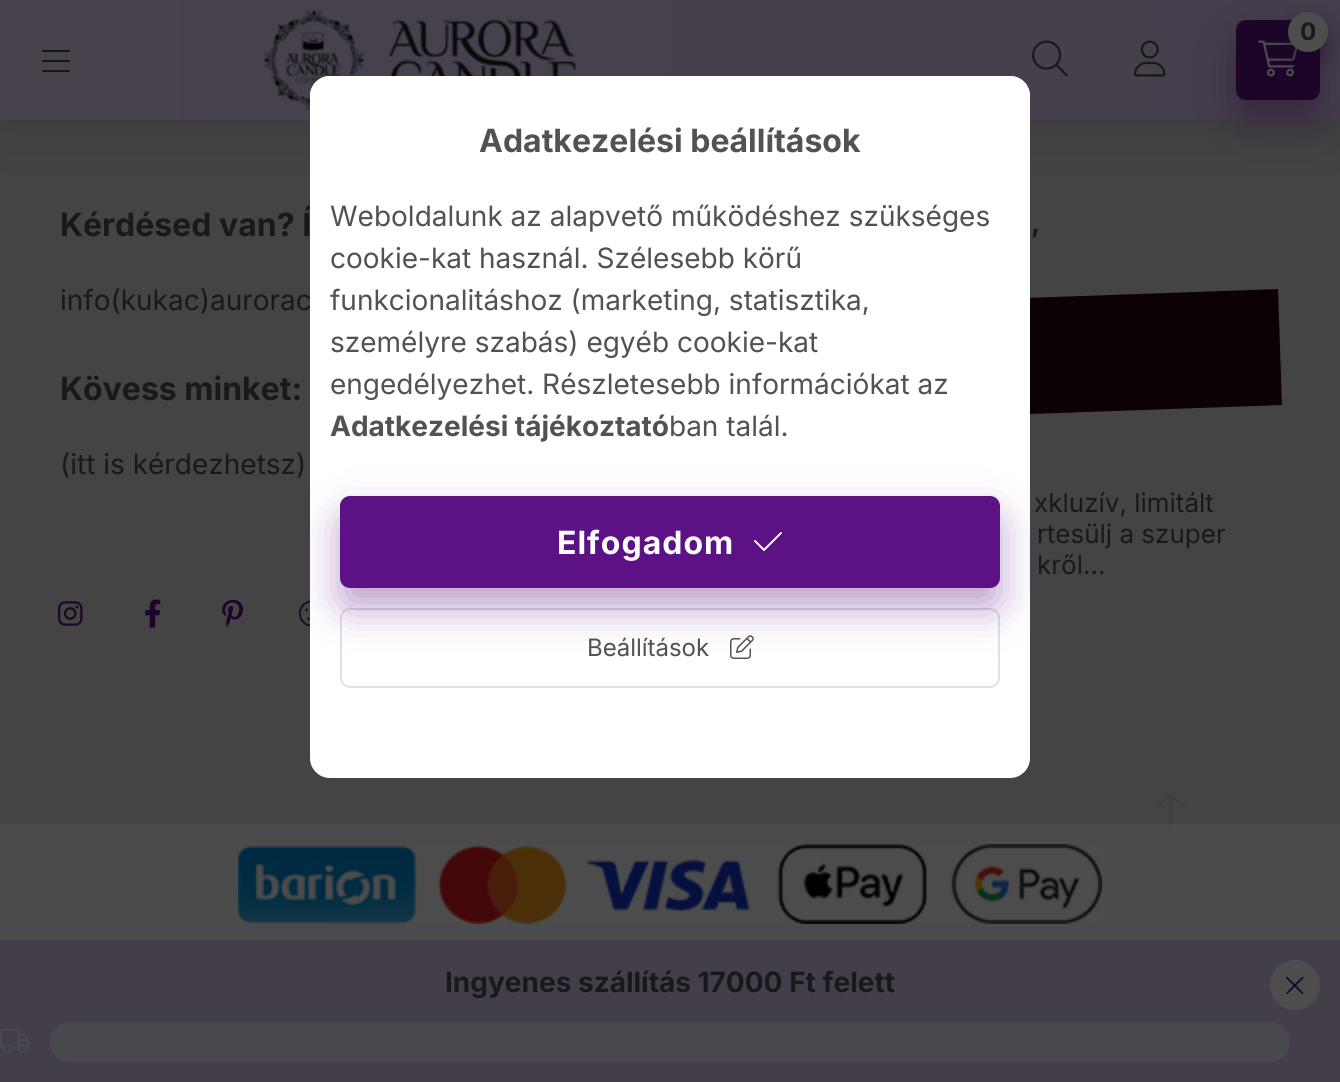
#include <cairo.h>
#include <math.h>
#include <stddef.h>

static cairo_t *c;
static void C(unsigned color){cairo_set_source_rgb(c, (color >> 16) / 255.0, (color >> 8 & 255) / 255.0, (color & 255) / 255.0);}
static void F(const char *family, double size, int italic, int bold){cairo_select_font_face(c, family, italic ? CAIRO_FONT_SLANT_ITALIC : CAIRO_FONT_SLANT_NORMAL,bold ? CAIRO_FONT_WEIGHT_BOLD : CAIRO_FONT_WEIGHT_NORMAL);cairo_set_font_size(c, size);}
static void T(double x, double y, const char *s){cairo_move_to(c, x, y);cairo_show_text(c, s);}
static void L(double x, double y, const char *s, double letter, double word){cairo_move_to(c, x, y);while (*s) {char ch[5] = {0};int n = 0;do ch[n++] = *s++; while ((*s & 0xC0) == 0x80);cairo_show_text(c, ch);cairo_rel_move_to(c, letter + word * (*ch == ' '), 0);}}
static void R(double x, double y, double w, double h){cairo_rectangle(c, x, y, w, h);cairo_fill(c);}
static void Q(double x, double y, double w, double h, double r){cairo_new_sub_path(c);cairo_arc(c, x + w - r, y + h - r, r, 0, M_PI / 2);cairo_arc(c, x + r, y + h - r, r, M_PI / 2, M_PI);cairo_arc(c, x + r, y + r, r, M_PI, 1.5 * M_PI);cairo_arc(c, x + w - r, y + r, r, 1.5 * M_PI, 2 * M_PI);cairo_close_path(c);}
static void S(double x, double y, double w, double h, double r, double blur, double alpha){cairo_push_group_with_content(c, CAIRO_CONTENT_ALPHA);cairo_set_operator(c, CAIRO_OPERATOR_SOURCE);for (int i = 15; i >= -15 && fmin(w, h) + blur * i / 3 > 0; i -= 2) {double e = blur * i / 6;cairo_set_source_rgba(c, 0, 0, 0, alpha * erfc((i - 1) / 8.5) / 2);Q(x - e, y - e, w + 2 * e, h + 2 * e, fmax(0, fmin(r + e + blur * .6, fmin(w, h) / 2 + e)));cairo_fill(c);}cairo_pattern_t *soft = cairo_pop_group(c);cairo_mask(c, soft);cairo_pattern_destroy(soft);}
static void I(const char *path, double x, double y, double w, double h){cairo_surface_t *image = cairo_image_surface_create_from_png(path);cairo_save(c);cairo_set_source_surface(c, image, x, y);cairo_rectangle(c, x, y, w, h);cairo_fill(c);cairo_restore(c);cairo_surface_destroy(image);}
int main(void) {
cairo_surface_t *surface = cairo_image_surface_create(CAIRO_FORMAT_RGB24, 1340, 1082);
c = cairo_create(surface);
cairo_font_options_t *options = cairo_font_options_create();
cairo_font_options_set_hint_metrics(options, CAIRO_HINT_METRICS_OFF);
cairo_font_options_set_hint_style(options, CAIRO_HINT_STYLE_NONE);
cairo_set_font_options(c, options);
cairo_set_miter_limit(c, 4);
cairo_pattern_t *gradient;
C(0x4b4b4b);
cairo_paint(c);
C(0x444444);
R(0,120,1340,704);
C(0x1c0528);
S(0,0,1340,120,0,30,.2);
gradient = cairo_pattern_create_linear(0,541,1340,541);
cairo_pattern_add_color_stop_rgba(gradient,0,0.282,0.259,0.302,1);
cairo_pattern_add_color_stop_rgba(gradient,1,0.271,0.243,0.298,1);
cairo_set_source(c,gradient);
cairo_pattern_destroy(gradient);
R(0,0,1340,120);
C(0x191919);
R(42,50,28,2);
R(42,60,28,2);
R(42,70,28,2);
I("1.png",263,10,314,100);
C(0x1c0528);
S(1236,40,84,80,10,20,.4);
C(0x1c0528);
Q(1236,20,84,80,10);
cairo_fill(c);
I("2.png",1258,40,40,37);
C(0x1c0528);
S(1288,22,40,40,20,10,.4);
C(0x4d4d4d);
cairo_arc(c,1308,32,20,0,2 * M_PI);
cairo_fill(c);
F("Inter",24,0,1);
C(0x191919);
T(1300,40,"0");
I("3.png",1032,40,36,37);
I("4.png",1134,40,32,37);
F("Inter",32,0,1);
T(60,236,"Kérdésed van? Í");
F("Inter",28,0,0);
T(60,310,"info(kukac)aurorac");
F("Inter",32,0,1);
T(60,400,"Kövess minket:");
F("Inter",28,0,0);
T(60,474,"(itt is kérdezhetsz)");
I("5.png",58,601,25,25);
I("6.png",145,599,16,29);
I("7.png",222,599,21,29);
I("8.png",298,600,12,27);
F("Inter",28,0,1);
T(1031,232,",");
C(0x0b0106);
cairo_new_path(c);
cairo_move_to(c,688,310);
cairo_line_to(c,1278,289);
cairo_line_to(c,1282,405);
cairo_line_to(c,692,426);
cairo_close_path(c);
cairo_fill(c);
F("Inter",26,0,0);
C(0x191919);
T(1034,512,"xkluzív, limitált");
T(1037,543,"rtesülj a szuper");
T(1037,574,"kről…");
I("9.png",238,844,864,80);
C(0x443e4b);
R(0,940,1340,142);
F("Inter",28,0,1);
C(0x191919);
T(445,992,"Ingyenes szállítás 17000 Ft felett");
C(0x47494d);
Q(50,1022,1240,40,20);
cairo_fill(c);
I("10.png",0,1029,30,24);
C(0x4d4d4d);
cairo_arc(c,1295,985,25,0,2 * M_PI);
cairo_fill(c);
I("11.png",1286,976,18,19);
C(0xffffff);
Q(310,76,720,702,20);
cairo_fill(c);
cairo_new_path(c);
cairo_move_to(c,330,76);
cairo_line_to(c,1010,76);
cairo_curve_to(c,1021,76,1030,85,1030,96);
cairo_line_to(c,1030,738);
cairo_line_to(c,310,738);
cairo_line_to(c,310,96);
cairo_curve_to(c,310,85,319,76,330,76);
cairo_close_path(c);
cairo_fill(c);
F("Inter",32,0,1);
C(0x525252);
T(479,152,"Adatkezelési beállítások");
F("Inter",28,0,0);
T(330,226,"Weboldalunk az alapvető működéshez szükséges");
T(330,268,"cookie-kat használ. Szélesebb körű");
T(330,310,"funkcionalitáshoz (marketing, statisztika,");
T(330,352,"személyre szabás) egyéb cookie-kat");
T(330,394,"engedélyezhet. Részletesebb információkat az");
F("Inter",28,0,1);
T(330,436,"Adatkezelési tájékoztató");
F("Inter",28,0,0);
T(669,436,"ban talál.");
Q(341,609,658,78,9);
C(0xe1e1e1);
cairo_stroke(c);
I("13.png",730,635,24,24);
cairo_save(c);
Q(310,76,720,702,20);
cairo_clip(c);
C(0x5c1284);
S(340,516,660,92,10,20,.4);
cairo_restore(c);
C(0x5c1284);
Q(341,497,658,90,9);
cairo_fill_preserve(c);
cairo_stroke(c);
F("Inter",32,0,1);
C(0xffffff);
L(557,554,"Elfogadom",1,0);
I("12.png",754,532,28,19);
F("Inter",24,0,0);
C(0x525252);
T(587,656,"Beállítások");
I("14.png",1156,793,30,36);
cairo_surface_write_to_png(surface, "o.png");
cairo_font_options_destroy(options);
cairo_destroy(c);
cairo_surface_destroy(surface);
return 0;
}
